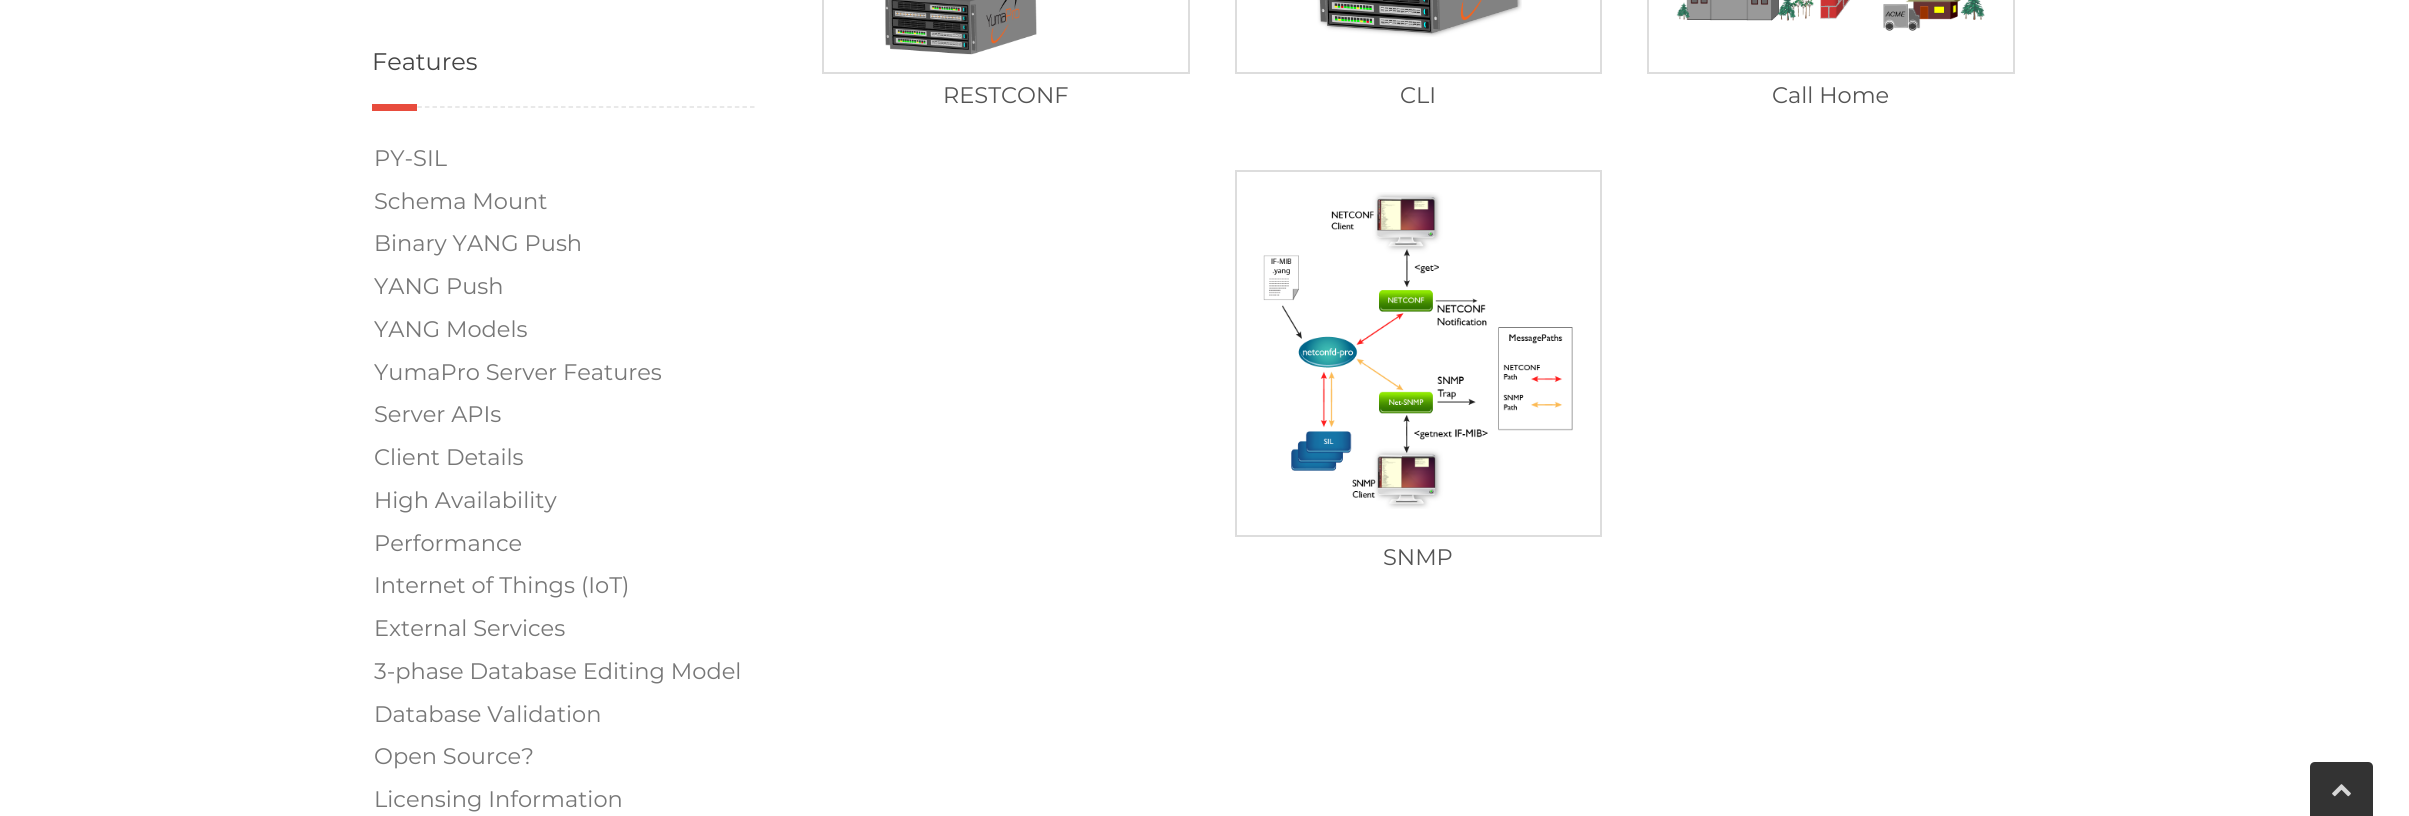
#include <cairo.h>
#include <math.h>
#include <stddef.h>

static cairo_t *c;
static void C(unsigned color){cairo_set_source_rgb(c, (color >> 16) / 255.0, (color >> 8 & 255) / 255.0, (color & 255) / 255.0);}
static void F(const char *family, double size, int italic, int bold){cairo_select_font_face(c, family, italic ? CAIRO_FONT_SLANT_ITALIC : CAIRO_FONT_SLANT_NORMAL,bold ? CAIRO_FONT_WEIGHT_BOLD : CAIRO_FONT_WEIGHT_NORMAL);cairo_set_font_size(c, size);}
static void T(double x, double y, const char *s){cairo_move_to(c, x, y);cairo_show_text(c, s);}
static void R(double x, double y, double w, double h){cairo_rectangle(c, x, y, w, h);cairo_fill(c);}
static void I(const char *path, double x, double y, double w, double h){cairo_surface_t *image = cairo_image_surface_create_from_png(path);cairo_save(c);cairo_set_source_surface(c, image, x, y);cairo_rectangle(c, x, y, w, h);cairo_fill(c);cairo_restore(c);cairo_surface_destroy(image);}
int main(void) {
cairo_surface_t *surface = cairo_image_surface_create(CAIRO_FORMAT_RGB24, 2409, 816);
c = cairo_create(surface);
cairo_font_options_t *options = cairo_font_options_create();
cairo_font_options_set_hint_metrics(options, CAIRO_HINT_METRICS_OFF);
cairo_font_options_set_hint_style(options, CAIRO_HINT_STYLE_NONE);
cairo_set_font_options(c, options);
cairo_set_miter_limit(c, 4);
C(0xffffff);
cairo_paint(c);
cairo_new_path(c);
cairo_move_to(c,372,107);
cairo_line_to(c,754.5,107);
C(0xe2e2e2);
cairo_set_line_width(c,1.5);
cairo_set_dash(c,(double[]){4.5,3.06},2,0);
cairo_stroke(c);
F("Montserrat",24,0,0);
C(0x444444);
T(372,70,"Features");
C(0xe84c3d);
R(372,104,45,7);
F("Montserrat",22.5,0,0);
C(0x777777);
T(374,166,"PY-SIL");
T(374,209,"Schema Mount");
T(374,251,"Binary YANG Push");
T(374,294,"YANG Push");
T(374,337,"YANG Models");
T(374,380,"YumaPro Server Features");
T(374,422,"Server APIs");
T(374,465,"Client Details");
T(374,508,"High Availability");
T(374,551,"Performance");
T(374,593,"Internet of Things (IoT)");
T(374,636,"External Services");
T(374,679,"3-phase Database Editing Model");
T(374,722,"Database Validation");
T(374,764,"Open Source?");
T(374,807,"Licensing Information");
cairo_rectangle(c,823,-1,366,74);
C(0xdddddd);
cairo_set_line_width(c,2);
cairo_set_dash(c,NULL,0,0);
cairo_stroke(c);
I("1.png",885,0,152,55);
C(0x545454);
T(943,103,"RESTCONF");
cairo_rectangle(c,1236,-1,365,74);
C(0xdddddd);
cairo_stroke(c);
I("2.png",1317,0,205,37);
C(0x545454);
T(1400,103,"CLI");
cairo_rectangle(c,1648,-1,366,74);
C(0xdddddd);
cairo_stroke(c);
I("3.png",1676,0,309,31);
C(0x545454);
T(1772,103,"Call Home");
cairo_rectangle(c,1236,171,365,365);
C(0xdddddd);
cairo_stroke(c);
I("4.png",1263,192,310,317);
C(0x545454);
T(1383,565,"SNMP");
C(0x333333);
cairo_new_path(c);
cairo_move_to(c,2315,762);
cairo_line_to(c,2368,762);
cairo_curve_to(c,2371,762,2373,764,2373,767);
cairo_line_to(c,2373,816);
cairo_line_to(c,2310,816);
cairo_line_to(c,2310,767);
cairo_curve_to(c,2310,764,2312,762,2315,762);
cairo_close_path(c);
cairo_fill(c);
I("5.png",2332,784,19,13);
cairo_surface_write_to_png(surface, "o.png");
cairo_font_options_destroy(options);
cairo_destroy(c);
cairo_surface_destroy(surface);
return 0;
}
